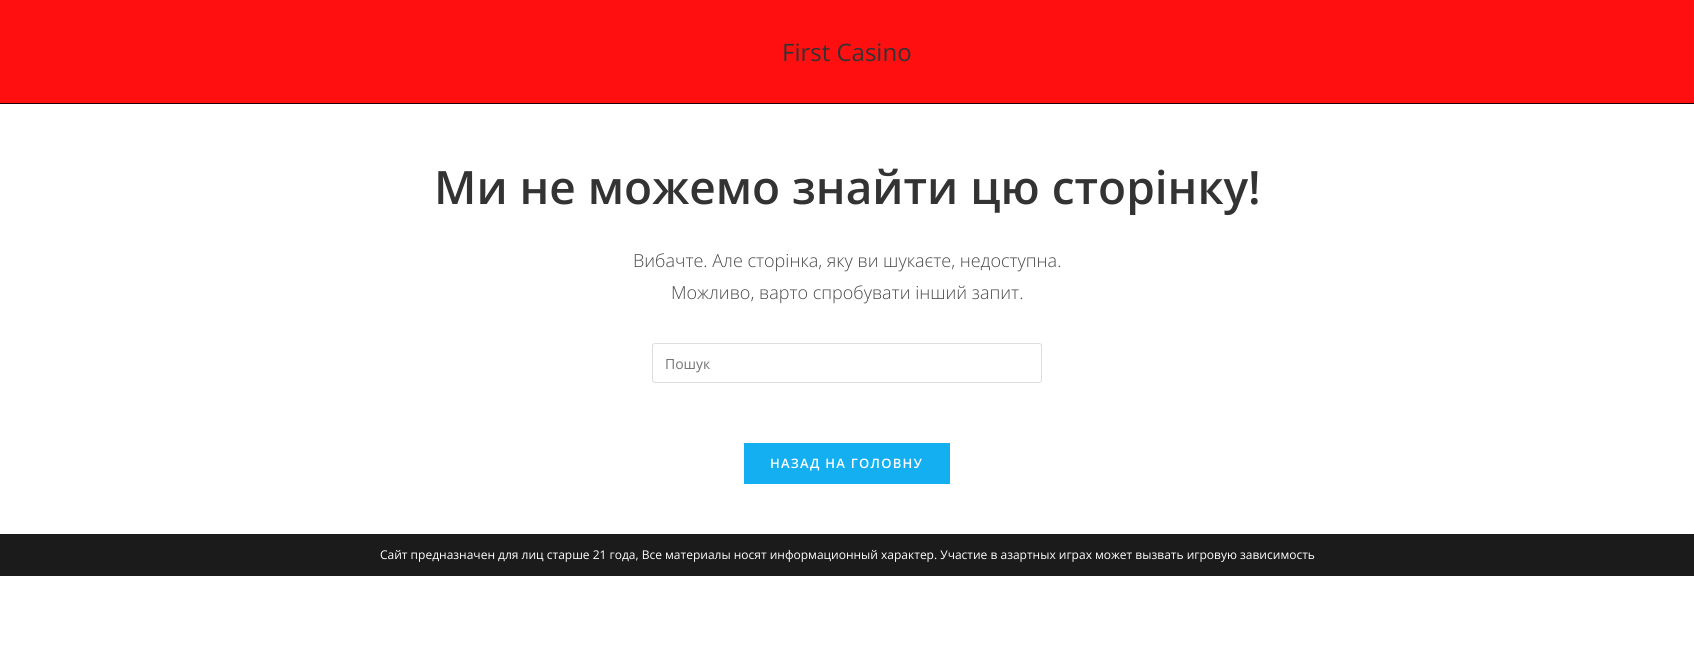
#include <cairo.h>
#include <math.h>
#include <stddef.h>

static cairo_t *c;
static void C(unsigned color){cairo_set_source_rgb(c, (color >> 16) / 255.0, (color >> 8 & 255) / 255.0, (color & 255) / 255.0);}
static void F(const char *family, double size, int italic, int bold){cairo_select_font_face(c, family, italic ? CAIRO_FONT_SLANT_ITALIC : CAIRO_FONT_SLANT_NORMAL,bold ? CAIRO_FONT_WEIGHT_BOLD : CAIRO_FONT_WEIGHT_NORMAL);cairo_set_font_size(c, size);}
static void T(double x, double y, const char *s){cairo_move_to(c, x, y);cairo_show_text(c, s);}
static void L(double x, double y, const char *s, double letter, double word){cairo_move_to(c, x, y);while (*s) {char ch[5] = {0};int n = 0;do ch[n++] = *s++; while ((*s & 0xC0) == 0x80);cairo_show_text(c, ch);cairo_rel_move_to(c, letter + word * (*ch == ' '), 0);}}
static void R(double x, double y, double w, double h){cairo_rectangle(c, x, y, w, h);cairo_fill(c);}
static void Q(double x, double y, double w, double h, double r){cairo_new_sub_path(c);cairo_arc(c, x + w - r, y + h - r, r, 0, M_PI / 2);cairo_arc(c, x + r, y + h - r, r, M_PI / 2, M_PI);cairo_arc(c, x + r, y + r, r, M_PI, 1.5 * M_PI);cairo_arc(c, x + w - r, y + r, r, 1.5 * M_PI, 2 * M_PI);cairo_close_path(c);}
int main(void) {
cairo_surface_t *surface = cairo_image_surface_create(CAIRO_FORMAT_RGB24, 1694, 655);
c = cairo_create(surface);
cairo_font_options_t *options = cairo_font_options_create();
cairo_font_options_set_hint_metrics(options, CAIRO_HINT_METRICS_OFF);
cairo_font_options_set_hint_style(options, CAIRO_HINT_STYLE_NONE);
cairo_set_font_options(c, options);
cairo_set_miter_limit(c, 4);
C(0xffffff);
cairo_paint(c);
C(0x210008);
R(0,103,1694,1);
C(0xff0f0f);
R(0,0,1694,103);
F("Open Sans",24,0,0);
C(0x333333);
T(782,61,"First Casino");
F("Open Sans SemiBold",46,0,0);
T(434,204,"Ми не можемо знайти цю сторінку!");
F("Open Sans Light",18,0,0);
C(0x4a4a4a);
T(633,267,"Вибачте. Але сторінка, яку ви шукаєте, недоступна.");
T(671,299,"Можливо, варто спробувати інший запит.");
Q(652.5,343.5,389,39,2.5);
C(0xdddddd);
cairo_set_line_width(c,1);
cairo_stroke(c);
F("Open Sans",14,0,0);
C(0x757575);
T(665,369,"Пошук");
C(0x13aff0);
R(744,443,206,41);
F("Open Sans SemiBold",13,0,0);
C(0xffffff);
L(770,468,"НАЗАД НА ГОЛОВНУ",1.25,0);
C(0x1b1b1b);
R(0,534,1694,42);
F("Open Sans",12,0,0);
C(0xffffff);
T(380,559,"Сайт предназначен для лиц старше 21 года, Все материалы носят информационный характер. Участие в азартных играх может вызвать игровую зависимость");
cairo_surface_write_to_png(surface, "o.png");
cairo_font_options_destroy(options);
cairo_destroy(c);
cairo_surface_destroy(surface);
return 0;
}
